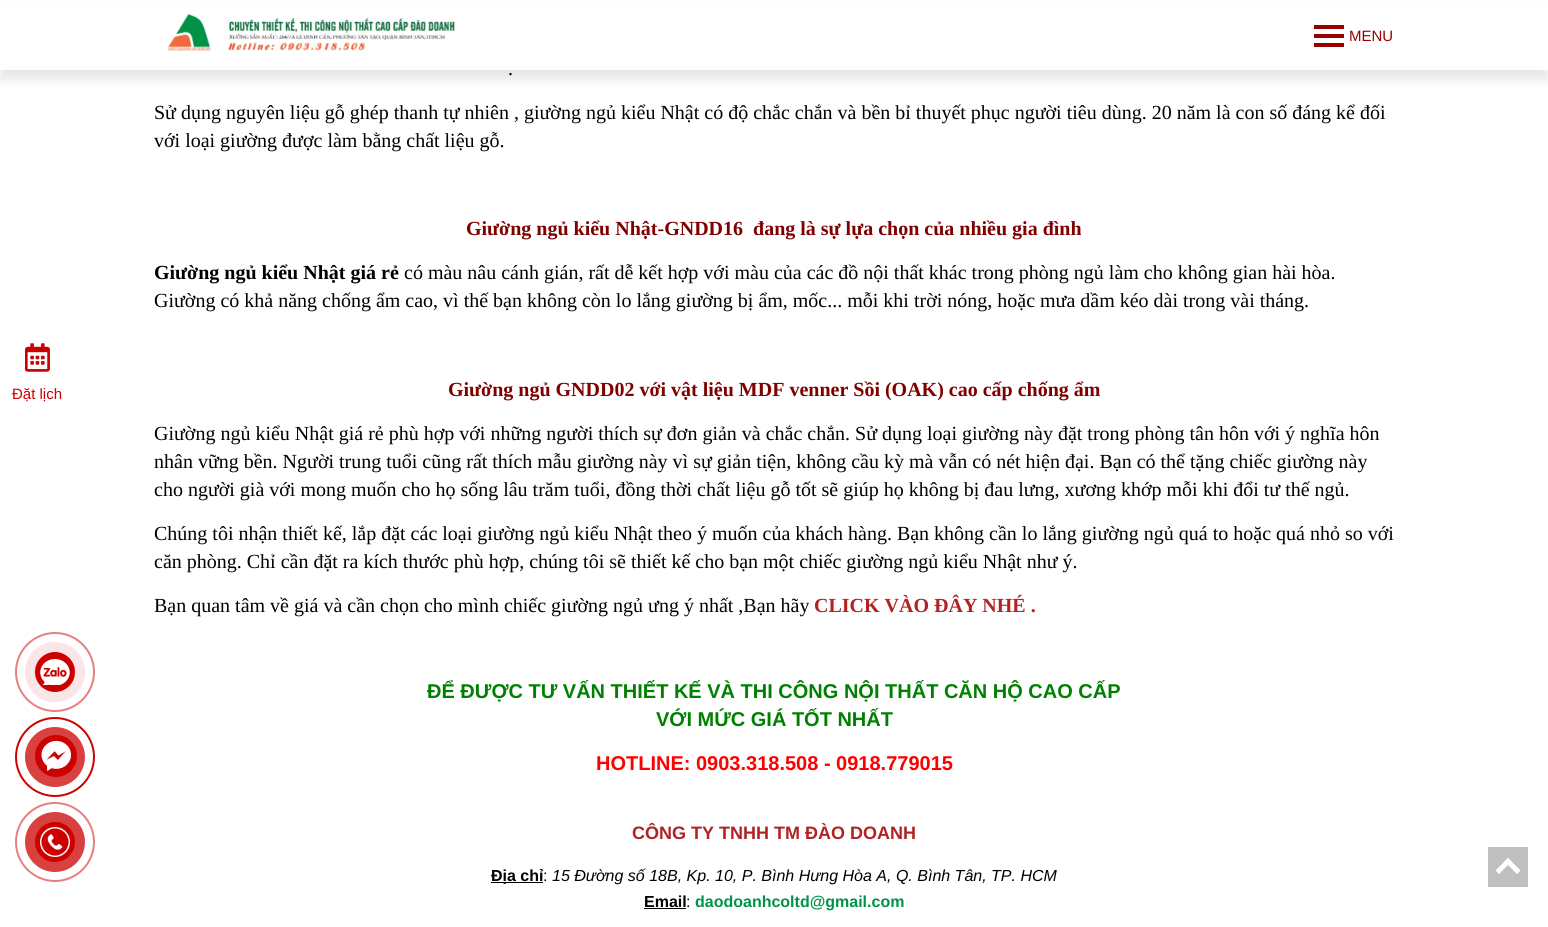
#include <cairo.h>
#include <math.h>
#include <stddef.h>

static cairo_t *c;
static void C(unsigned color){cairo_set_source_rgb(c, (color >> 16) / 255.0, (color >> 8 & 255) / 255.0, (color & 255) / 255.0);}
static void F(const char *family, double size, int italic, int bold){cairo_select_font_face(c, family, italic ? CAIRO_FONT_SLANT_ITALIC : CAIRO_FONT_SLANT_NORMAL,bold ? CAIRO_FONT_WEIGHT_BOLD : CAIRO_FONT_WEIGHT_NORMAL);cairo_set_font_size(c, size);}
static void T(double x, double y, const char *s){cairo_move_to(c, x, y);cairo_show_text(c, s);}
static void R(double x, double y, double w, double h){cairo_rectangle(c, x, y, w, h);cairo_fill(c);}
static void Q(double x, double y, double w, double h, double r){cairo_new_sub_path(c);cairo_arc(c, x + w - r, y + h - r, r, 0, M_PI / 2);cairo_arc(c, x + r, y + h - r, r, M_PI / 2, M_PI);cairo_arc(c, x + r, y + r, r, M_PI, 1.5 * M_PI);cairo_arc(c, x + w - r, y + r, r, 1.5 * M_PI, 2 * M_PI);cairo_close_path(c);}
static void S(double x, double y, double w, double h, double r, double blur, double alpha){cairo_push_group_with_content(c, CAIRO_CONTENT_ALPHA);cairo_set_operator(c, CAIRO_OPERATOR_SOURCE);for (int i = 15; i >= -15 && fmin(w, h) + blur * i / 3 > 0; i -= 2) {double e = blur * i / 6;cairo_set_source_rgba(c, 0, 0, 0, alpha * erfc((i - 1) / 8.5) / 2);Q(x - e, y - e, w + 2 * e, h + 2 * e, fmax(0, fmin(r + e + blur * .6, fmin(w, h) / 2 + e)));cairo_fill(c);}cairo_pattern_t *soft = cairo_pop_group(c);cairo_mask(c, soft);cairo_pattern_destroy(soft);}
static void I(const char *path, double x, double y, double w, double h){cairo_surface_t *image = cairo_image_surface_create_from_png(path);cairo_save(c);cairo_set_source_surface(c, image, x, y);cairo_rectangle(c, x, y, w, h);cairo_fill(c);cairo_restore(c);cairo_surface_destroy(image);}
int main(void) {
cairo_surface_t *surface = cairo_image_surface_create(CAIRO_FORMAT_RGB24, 1548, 927);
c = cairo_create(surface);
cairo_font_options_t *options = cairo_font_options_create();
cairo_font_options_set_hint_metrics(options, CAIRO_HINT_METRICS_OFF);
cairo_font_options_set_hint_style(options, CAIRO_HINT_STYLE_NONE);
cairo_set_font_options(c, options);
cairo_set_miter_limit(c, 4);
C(0xffffff);
cairo_paint(c);
C(0x000000);
S(0,10,1548,70,0,5,.1);
C(0xffffff);
R(0,4,1548,66);
I("1.png",167,14,288,37);
C(0x990000);
R(1314,25,30,4);
R(1314,34,30,4);
R(1314,43,30,4);
F("Liberation Sans",15,0,0);
T(1349,41,"MENU");
I("2.png",25,343,25,29);
C(0xcc0000);
T(12,399,"Đặt lịch");
F("Liberation Serif",20,0,0);
C(0x000000);
T(508,75,".");
T(154,119,"Sử dụng nguyên liệu gỗ ghép thanh tự nhiên , giường ngủ kiểu Nhật có độ chắc chắn và bền bỉ thuyết phục người tiêu dùng. 20 năm là con số đáng kể đối");
T(154,147,"với loại giường được làm bằng chất liệu gỗ.");
F("Liberation Serif",20,0,1);
C(0x800000);
T(466,235,"Giường ngủ kiểu Nhật-GNDD16  đang là sự lựa chọn của nhiều gia đình");
C(0x000000);
T(154,279,"Giường ngủ kiểu Nhật giá rẻ");
F("Liberation Serif",20,0,0);
T(404,279,"có màu nâu cánh gián, rất dễ kết hợp với màu của các đồ nội thất khác trong phòng ngủ làm cho không gian hài hòa.");
T(154,307,"Giường có khả năng chống ẩm cao, vì thế bạn không còn lo lắng giường bị ẩm, mốc... mỗi khi trời nóng, hoặc mưa dầm kéo dài trong vài tháng.");
F("Liberation Serif",20,0,1);
C(0x800000);
T(448,396,"Giường ngủ GNDD02 với vật liệu MDF venner Sồi (OAK) cao cấp chống ẩm");
F("Liberation Serif",20,0,0);
C(0x000000);
T(154,440,"Giường ngủ kiểu Nhật giá rẻ phù hợp với những người thích sự đơn giản và chắc chắn. Sử dụng loại giường này đặt trong phòng tân hôn với ý nghĩa hôn");
T(154,468,"nhân vững bền. Người trung tuổi cũng rất thích mẫu giường này vì sự giản tiện, không cầu kỳ mà vẫn có nét hiện đại. Bạn có thể tặng chiếc giường này");
T(154,496,"cho người già với mong muốn cho họ sống lâu trăm tuổi, đồng thời chất liệu gỗ tốt sẽ giúp họ không bị đau lưng, xương khớp mỗi khi đổi tư thế ngủ.");
T(154,540,"Chúng tôi nhận thiết kế, lắp đặt các loại giường ngủ kiểu Nhật theo ý muốn của khách hàng. Bạn không cần lo lắng giường ngủ quá to hoặc quá nhỏ so với");
T(154,568,"căn phòng. Chỉ cần đặt ra kích thước phù hợp, chúng tôi sẽ thiết kế cho bạn một chiếc giường ngủ kiểu Nhật như ý.");
T(154,612,"Bạn quan tâm về giá và cần chọn cho mình chiếc giường ngủ ưng ý nhất ,Bạn hãy");
F("Liberation Serif",20,0,1);
C(0xb22222);
T(814,612,"CLICK VÀO ĐÂY NHÉ .");
F("Liberation Sans",20,0,1);
C(0x008000);
T(427,698,"ĐỂ ĐƯỢC TƯ VẤN THIẾT KẾ VÀ THI CÔNG NỘI THẤT CĂN HỘ CAO CẤP");
T(656,726,"VỚI MỨC GIÁ TỐT NHẤT");
C(0xff0000);
T(596,770,"HOTLINE: 0903.318.508 - 0918.779015");
F("Liberation Sans",18,0,1);
C(0xb22222);
T(632,839,"CÔNG TY TNHH TM ĐÀO DOANH");
C(0x000000);
R(491,882,52,1);
F("Liberation Sans",16,0,1);
T(491,881,"Địa chỉ");
F("Liberation Sans",16,0,0);
T(543,881,":");
F("Liberation Sans",16,1,0);
T(552,881,"15 Đường số 18B, Kp. 10, P. Bình Hưng Hòa A, Q. Bình Tân, TP. HCM");
F("Liberation Sans",16,0,1);
T(644,907,"Email");
F("Liberation Sans",16,0,0);
T(686,907,":");
R(644,908,42,1);
F("Liberation Sans",16,0,1);
C(0x019348);
T(695,907,"daodoanhcoltd@gmail.com");
cairo_new_path(c);
cairo_arc(c,55,672,39,0,2 * M_PI);
C(0xe68080);
cairo_stroke(c);
C(0xfae6e6);
cairo_arc(c,55,672,30,0,2 * M_PI);
cairo_fill(c);
C(0xcc0000);
cairo_arc(c,55,672,20,0,2 * M_PI);
cairo_fill(c);
I("3.png",40,659,30,26);
cairo_arc(c,55,757,39,0,2 * M_PI);
C(0xcd0303);
cairo_stroke(c);
C(0xd94040);
cairo_arc(c,55,757,30,0,2 * M_PI);
cairo_fill(c);
C(0xcc0101);
cairo_arc(c,56,756,21,0,2 * M_PI);
cairo_fill(c);
I("4.png",41,740,30,31);
cairo_arc(c,55,842,39,0,2 * M_PI);
C(0xe68080);
cairo_stroke(c);
C(0xd94040);
cairo_arc(c,55,842,30,0,2 * M_PI);
cairo_fill(c);
C(0xcc0000);
cairo_arc(c,55,842,20,0,2 * M_PI);
cairo_fill(c);
I("5.png",40,827,30,30);
C(0xbfbfbf);
R(1488,847,40,40);
C(0xffffff);
cairo_new_path(c);
cairo_move_to(c,1504.5,861.5);
cairo_line_to(c,1508,858);
cairo_line_to(c,1520.5,870.5);
cairo_line_to(c,1517,874);
cairo_close_path(c);
cairo_fill(c);
cairo_new_path(c);
cairo_move_to(c,1508,858);
cairo_line_to(c,1511.5,861.5);
cairo_line_to(c,1499,874);
cairo_line_to(c,1495.5,870.5);
cairo_close_path(c);
cairo_fill(c);
cairo_surface_write_to_png(surface, "o.png");
cairo_font_options_destroy(options);
cairo_destroy(c);
cairo_surface_destroy(surface);
return 0;
}
